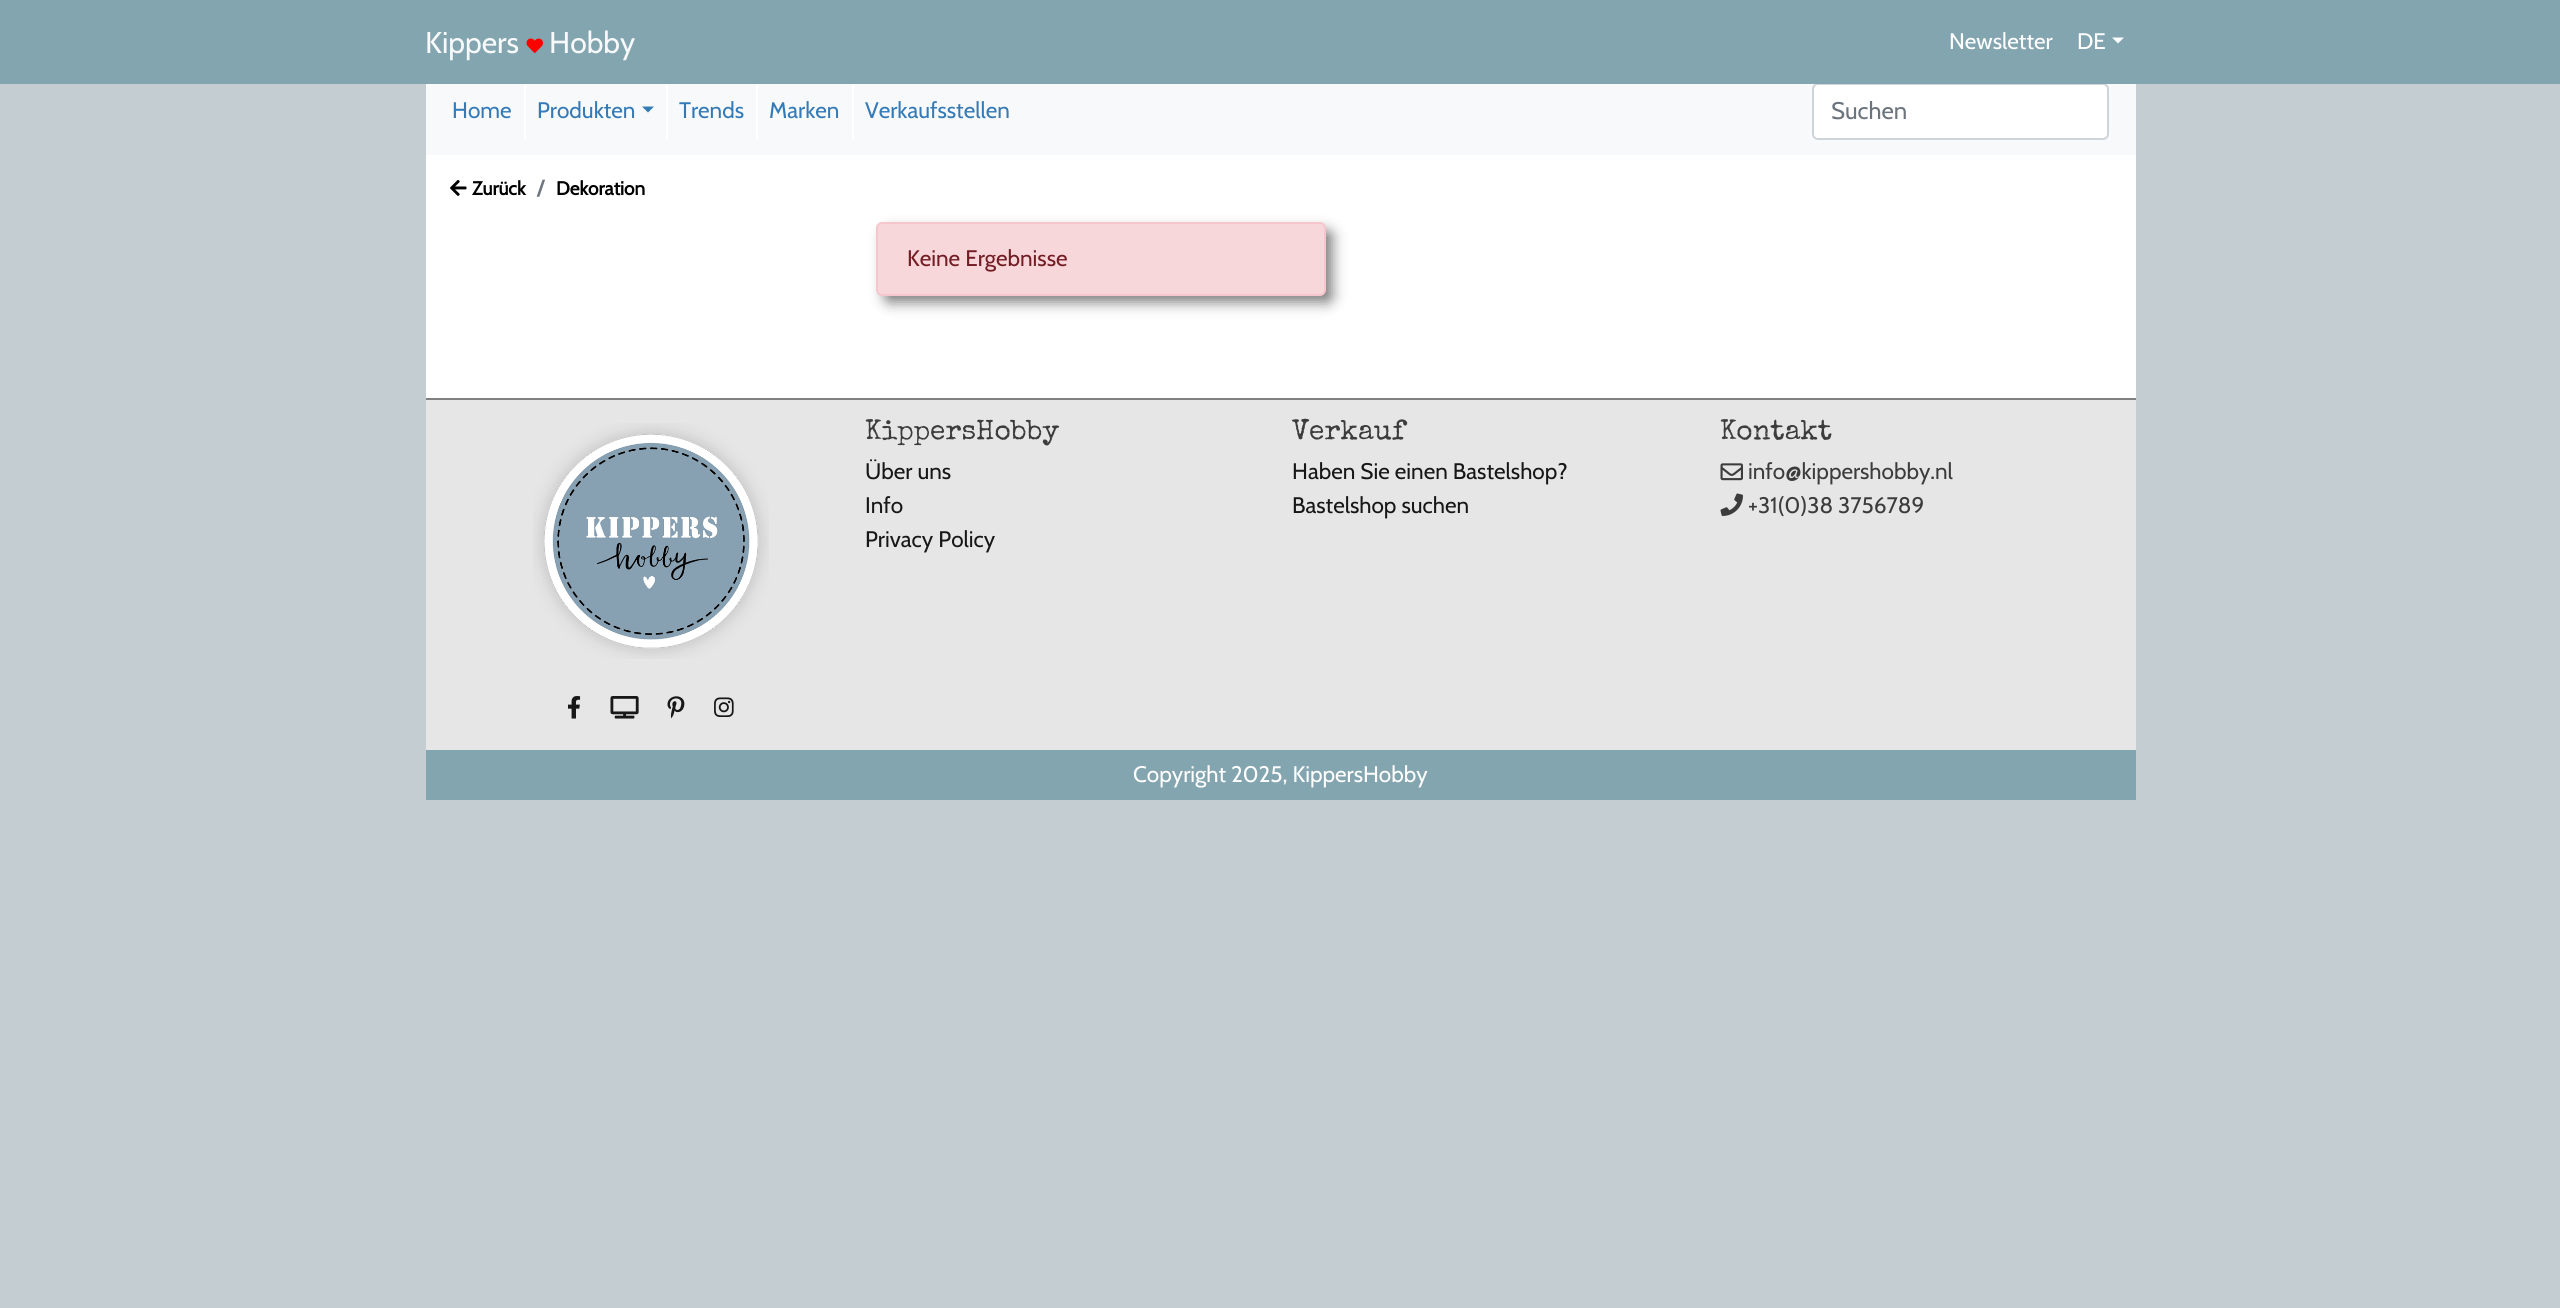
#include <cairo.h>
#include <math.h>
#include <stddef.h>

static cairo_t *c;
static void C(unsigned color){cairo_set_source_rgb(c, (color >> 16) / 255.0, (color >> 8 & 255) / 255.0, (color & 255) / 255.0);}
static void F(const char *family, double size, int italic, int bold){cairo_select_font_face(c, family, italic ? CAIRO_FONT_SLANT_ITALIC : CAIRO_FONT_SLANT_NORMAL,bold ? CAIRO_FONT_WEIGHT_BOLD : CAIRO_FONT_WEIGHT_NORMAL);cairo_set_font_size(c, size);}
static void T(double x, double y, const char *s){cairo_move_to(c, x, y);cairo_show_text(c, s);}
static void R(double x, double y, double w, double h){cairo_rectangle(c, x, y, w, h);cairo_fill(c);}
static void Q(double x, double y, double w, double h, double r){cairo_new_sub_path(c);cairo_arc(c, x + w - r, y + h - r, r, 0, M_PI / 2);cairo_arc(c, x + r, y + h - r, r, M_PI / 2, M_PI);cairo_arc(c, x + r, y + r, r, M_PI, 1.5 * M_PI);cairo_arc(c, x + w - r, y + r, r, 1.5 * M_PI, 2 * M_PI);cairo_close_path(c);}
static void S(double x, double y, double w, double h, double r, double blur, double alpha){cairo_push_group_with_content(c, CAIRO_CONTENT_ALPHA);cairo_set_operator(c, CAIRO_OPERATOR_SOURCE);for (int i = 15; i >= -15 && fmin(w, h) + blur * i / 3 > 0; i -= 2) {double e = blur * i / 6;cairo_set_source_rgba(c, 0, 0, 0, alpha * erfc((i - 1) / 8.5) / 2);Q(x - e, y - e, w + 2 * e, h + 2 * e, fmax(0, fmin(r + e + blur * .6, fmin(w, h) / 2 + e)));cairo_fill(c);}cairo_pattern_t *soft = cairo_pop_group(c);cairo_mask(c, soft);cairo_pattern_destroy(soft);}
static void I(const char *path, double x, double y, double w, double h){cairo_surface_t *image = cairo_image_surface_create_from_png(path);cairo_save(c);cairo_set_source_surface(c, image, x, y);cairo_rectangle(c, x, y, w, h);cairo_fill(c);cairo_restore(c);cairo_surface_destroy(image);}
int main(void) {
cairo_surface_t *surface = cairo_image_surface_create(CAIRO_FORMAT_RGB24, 2560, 1308);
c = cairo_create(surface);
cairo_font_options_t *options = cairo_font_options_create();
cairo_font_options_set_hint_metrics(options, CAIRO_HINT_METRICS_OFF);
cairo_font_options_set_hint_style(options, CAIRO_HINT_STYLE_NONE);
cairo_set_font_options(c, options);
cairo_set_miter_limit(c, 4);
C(0xc4cdd2);
cairo_paint(c);
C(0xffffff);
R(426,155,1710,243);
C(0xf8f9fa);
R(426,84,1710,71);
C(0xffffff);
R(524,83,2,57);
R(666,83,2,57);
R(756,83,2,57);
R(852,83,2,57);
Q(1813,84,295,55,5);
cairo_fill_preserve(c);
C(0xced4da);
cairo_stroke(c);
C(0x83a5b0);
R(0,0,2560,84);
F("Cabin",30,0,0);
C(0xf8f9fa);
T(425,53,"Kippers");
I("1.png",526,38,17,15);
T(549,53,"Hobby");
F("Cabin",22.5,0,0);
C(0xffffff);
T(1949,49,"Newsletter");
T(2077,49,"DE");
cairo_new_path(c);
cairo_move_to(c,2112,37.5);
cairo_line_to(c,2124,37.5);
cairo_line_to(c,2118,43.5);
cairo_close_path(c);
cairo_fill(c);
C(0x337ab7);
T(452,118,"Home");
T(537,118,"Produkten");
cairo_new_path(c);
cairo_move_to(c,642,106.5);
cairo_line_to(c,654,106.5);
cairo_line_to(c,648,112.5);
cairo_close_path(c);
cairo_fill(c);
T(679,118,"Trends");
T(769,118,"Marken");
T(865,118,"Verkaufsstellen");
F("Cabin",24,0,0);
C(0x6c757d);
T(1831,119,"Suchen");
I("2.png",450,180,17,16);
F("Cabin",19,0,1);
C(0x000000);
T(472,195,"Zurück");
F("Cabin",21,0,1);
C(0x6c757d);
T(537,195,"/");
F("Cabin",19,0,1);
C(0x000000);
T(556,195,"Dekoration");
C(0x000000);
S(885,231,447,71,5,7,.53);
C(0xf8d7da);
Q(877,223,448,72,5);
cairo_fill_preserve(c);
C(0xf5c6cb);
cairo_stroke(c);
F("Cabin",22.5,0,0);
C(0x721c24);
T(907,266,"Keine Ergebnisse");
C(0xe6e6e6);
R(426,400,1710,350);
C(0x808080);
R(426,398,1710,2);
I("3.png",533,423,236,236);
I("4.png",568,696,13,23);
I("5.png",610,696,29,23);
I("6.png",667,696,18,23);
I("7.png",714,697,20,20);
F("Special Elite",28,0,0);
C(0x3c3c3c);
T(865,439,"KippersHobby");
F("Cabin",22.5,0,0);
C(0x171717);
T(865,479,"Über uns");
T(865,513,"Info");
T(865,547,"Privacy Policy");
F("Special Elite",28,0,0);
C(0x3c3c3c);
T(1292,439,"Verkauf");
F("Cabin",22.5,0,0);
C(0x171717);
T(1292,479,"Haben Sie einen Bastelshop?");
T(1292,513,"Bastelshop suchen");
F("Special Elite",28,0,0);
C(0x3c3c3c);
T(1720,439,"Kontakt");
I("8.png",1720,463,23,18);
F("Cabin",22.5,0,0);
T(1748,479,"info@kippershobby.nl");
I("9.png",1720,493,23,23);
T(1748,513,"+31(0)38 3756789");
C(0x83a5b0);
R(426,750,1710,50);
C(0xffffff);
T(1133,782,"Copyright 2025, KippersHobby");
cairo_surface_write_to_png(surface, "o.png");
cairo_font_options_destroy(options);
cairo_destroy(c);
cairo_surface_destroy(surface);
return 0;
}
